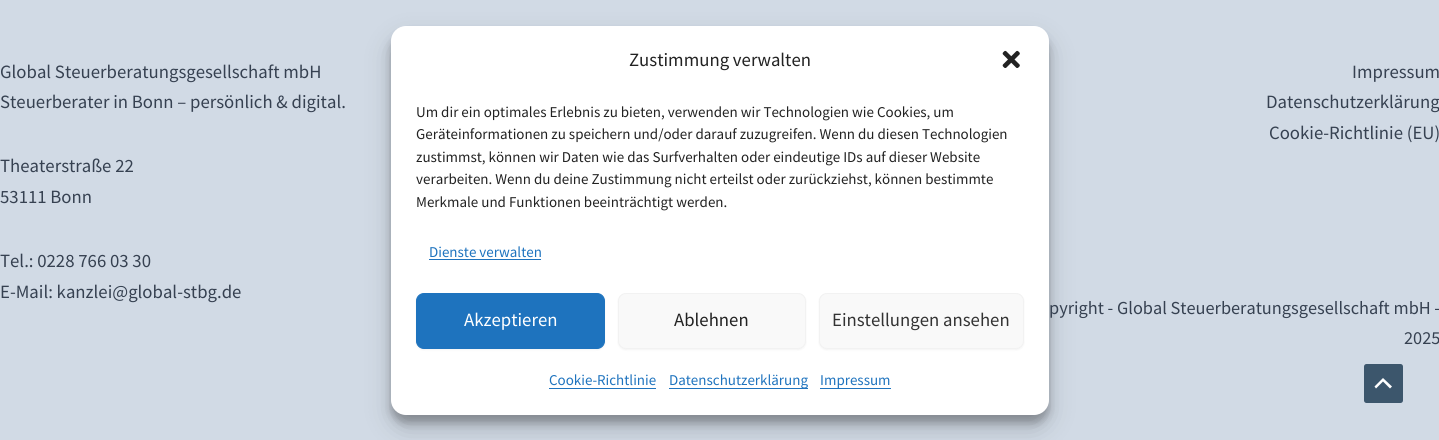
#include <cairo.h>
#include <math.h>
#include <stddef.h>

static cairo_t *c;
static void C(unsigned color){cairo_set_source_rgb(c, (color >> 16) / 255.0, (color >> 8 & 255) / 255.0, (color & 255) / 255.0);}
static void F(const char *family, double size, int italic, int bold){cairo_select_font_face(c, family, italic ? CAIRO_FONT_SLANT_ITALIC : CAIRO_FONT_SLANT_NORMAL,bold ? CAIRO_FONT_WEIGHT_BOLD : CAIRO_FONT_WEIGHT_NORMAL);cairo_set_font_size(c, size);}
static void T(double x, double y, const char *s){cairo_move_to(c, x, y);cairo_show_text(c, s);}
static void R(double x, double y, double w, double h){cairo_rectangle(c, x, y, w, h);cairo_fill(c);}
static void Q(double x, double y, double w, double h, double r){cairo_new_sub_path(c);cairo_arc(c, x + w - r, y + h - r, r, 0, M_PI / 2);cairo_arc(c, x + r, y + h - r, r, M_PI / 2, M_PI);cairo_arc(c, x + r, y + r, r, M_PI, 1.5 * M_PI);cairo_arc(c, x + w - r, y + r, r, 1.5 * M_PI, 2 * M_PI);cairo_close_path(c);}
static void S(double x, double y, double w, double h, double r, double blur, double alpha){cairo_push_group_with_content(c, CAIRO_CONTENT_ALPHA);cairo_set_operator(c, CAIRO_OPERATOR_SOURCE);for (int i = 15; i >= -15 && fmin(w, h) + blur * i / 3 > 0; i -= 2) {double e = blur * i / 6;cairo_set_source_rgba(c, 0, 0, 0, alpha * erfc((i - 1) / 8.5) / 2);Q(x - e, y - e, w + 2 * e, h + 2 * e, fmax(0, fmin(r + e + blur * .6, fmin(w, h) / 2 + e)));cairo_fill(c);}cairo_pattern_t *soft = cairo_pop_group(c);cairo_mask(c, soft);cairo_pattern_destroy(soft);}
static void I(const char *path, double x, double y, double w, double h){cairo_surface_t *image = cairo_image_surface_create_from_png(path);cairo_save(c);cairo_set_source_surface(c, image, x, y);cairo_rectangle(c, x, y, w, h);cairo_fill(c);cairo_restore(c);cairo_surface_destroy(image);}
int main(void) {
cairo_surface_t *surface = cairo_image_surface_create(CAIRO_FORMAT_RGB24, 1439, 440);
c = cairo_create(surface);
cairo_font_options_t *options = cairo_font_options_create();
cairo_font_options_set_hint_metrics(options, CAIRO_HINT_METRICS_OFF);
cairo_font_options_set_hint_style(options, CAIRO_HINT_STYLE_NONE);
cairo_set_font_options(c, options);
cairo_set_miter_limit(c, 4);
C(0xd1dae5);
cairo_paint(c);
C(0x000000);
S(391,34,658,389,15,4,.23);
S(391,39,658,389,15,12.5,.19);
C(0xffffff);
Q(391,26,658,389,15);
cairo_fill(c);
F("Source Sans Pro",18.75,0,0);
C(0x222222);
T(629,66,"Zustimmung verwalten");
I("1.png",1002,50,18,18);
F("Source Sans Pro",15,0,0);
T(416,117,"Um dir ein optimales Erlebnis zu bieten, verwenden wir Technologien wie Cookies, um");
T(416,139,"Geräteinformationen zu speichern und/oder darauf zuzugreifen. Wenn du diesen Technologien");
T(416,162,"zustimmst, können wir Daten wie das Surfverhalten oder eindeutige IDs auf dieser Website");
T(416,184,"verarbeiten. Wenn du deine Zustimmung nicht erteilst oder zurückziehst, können bestimmte");
T(416,207,"Merkmale und Funktionen beeinträchtigt werden.");
C(0x1e73be);
T(429,257,"Dienste verwalten");
R(429,259,112,1);
C(0x000000);
S(416,294,189,56,8,1,.05);
C(0x1e73be);
Q(416.5,293.5,188,55,7.5);
cairo_fill_preserve(c);
cairo_set_line_width(c,1);
cairo_stroke(c);
F("Source Sans Pro",18.75,0,0);
C(0xffffff);
T(464,326,"Akzeptieren");
C(0x000000);
S(618,294,188,56,8,1,.05);
C(0xf9f9f9);
Q(618.5,293.5,187,55,7.5);
cairo_fill_preserve(c);
C(0xf2f2f2);
cairo_stroke(c);
C(0x222222);
T(674,326,"Ablehnen");
C(0x000000);
S(819,294,205,56,8,1,.05);
C(0xf9f9f9);
Q(819.5,293.5,204,55,7.5);
cairo_fill_preserve(c);
C(0xf2f2f2);
cairo_stroke(c);
C(0x333333);
T(832,326,"Einstellungen ansehen");
F("Source Sans Pro",15,0,0);
C(0x1e73be);
T(549,385,"Cookie-Richtlinie");
R(549,388,107,1);
R(669,388,139,1);
T(669,385,"Datenschutzerklärung");
R(820,388,71,1);
T(820,385,"Impressum");
F("Source Sans Pro",18.75,0,0);
C(0x364151);
T(0,78,"Global Steuerberatungsgesellschaft mbH");
T(0,108,"Steuerberater in Bonn – persönlich & digital.");
T(0,172,"Theaterstraße 22");
T(0,203,"53111 Bonn");
T(0,267,"Tel.: 0228 766 03 30");
T(0,298,"E-Mail: kanzlei@global-stbg.de");
T(1352,78,"Impressum");
T(1266,108,"Datenschutzerklärung");
T(1269,139,"Cookie-Richtlinie (EU)");
F("Source Sans Pro",18.3,0,0);
T(1049,314,"pyright - Global Steuerberatungsgesellschaft mbH -");
T(1404,344,"2025");
C(0x3c566c);
Q(1364,364,39,39,2.5);
cairo_fill(c);
C(0xffffff);
cairo_new_path(c);
cairo_move_to(c,1392,386.5);
cairo_line_to(c,1383,378);
cairo_line_to(c,1374.5,386.5);
cairo_line_to(c,1376,388.5);
cairo_line_to(c,1383,381.5);
cairo_line_to(c,1390,388.5);
cairo_close_path(c);
cairo_fill(c);
cairo_surface_write_to_png(surface, "o.png");
cairo_font_options_destroy(options);
cairo_destroy(c);
cairo_surface_destroy(surface);
return 0;
}
